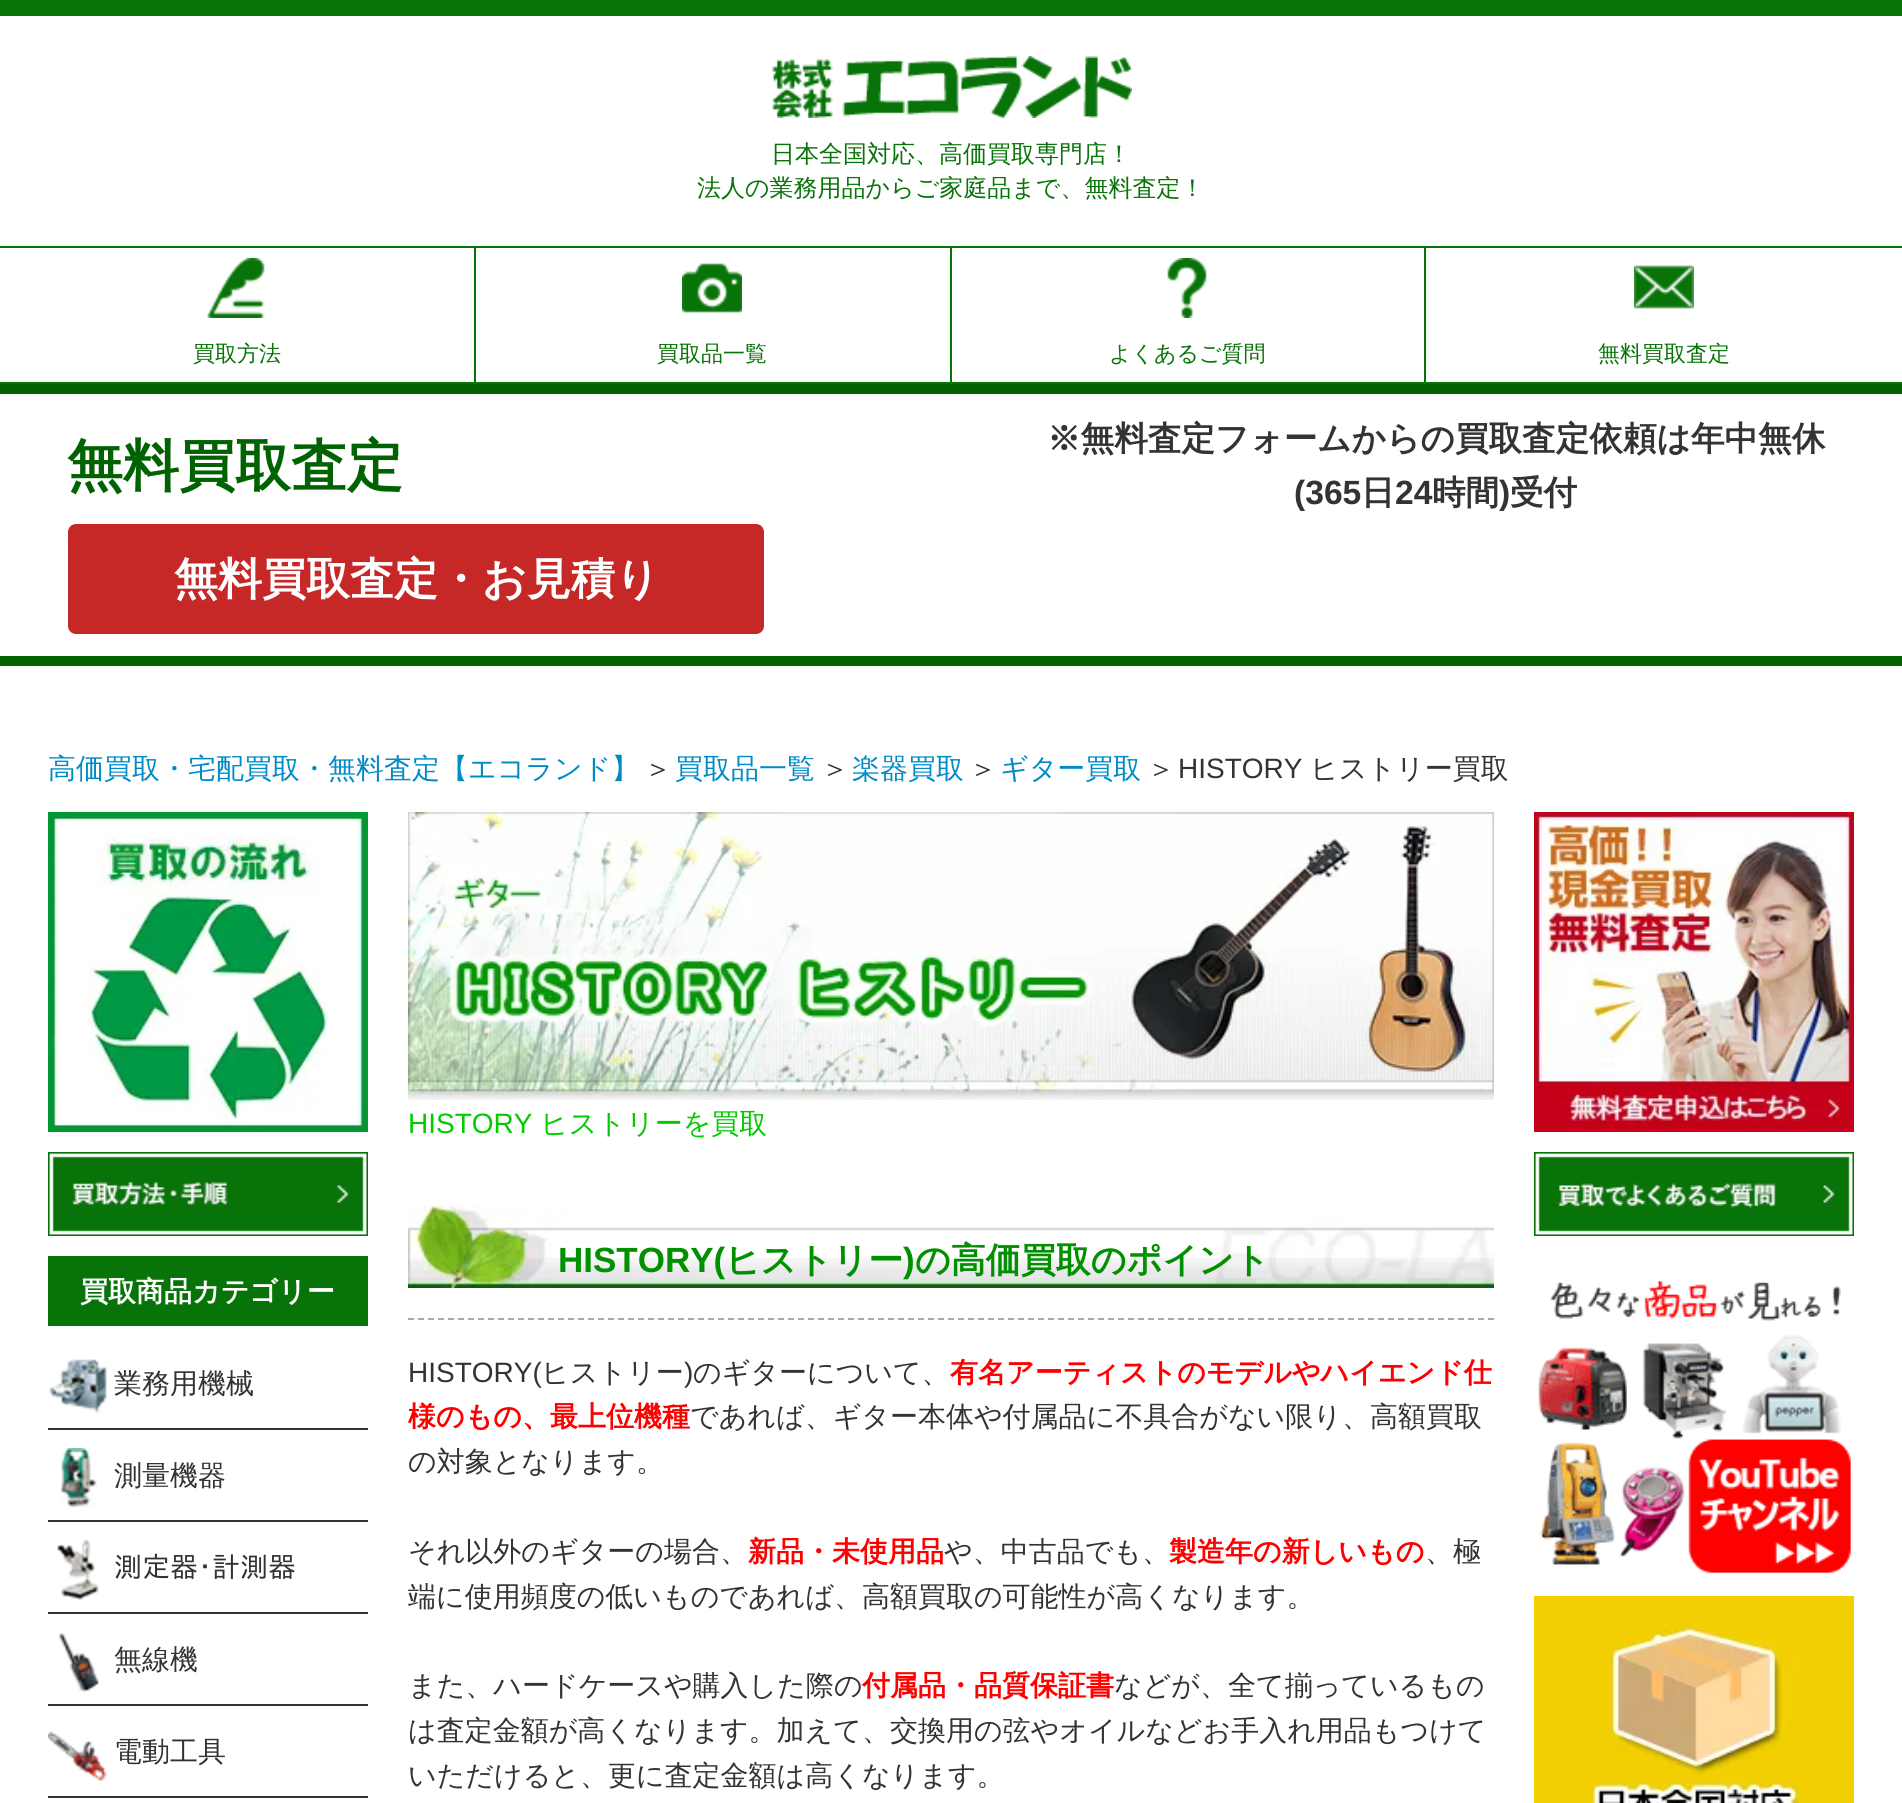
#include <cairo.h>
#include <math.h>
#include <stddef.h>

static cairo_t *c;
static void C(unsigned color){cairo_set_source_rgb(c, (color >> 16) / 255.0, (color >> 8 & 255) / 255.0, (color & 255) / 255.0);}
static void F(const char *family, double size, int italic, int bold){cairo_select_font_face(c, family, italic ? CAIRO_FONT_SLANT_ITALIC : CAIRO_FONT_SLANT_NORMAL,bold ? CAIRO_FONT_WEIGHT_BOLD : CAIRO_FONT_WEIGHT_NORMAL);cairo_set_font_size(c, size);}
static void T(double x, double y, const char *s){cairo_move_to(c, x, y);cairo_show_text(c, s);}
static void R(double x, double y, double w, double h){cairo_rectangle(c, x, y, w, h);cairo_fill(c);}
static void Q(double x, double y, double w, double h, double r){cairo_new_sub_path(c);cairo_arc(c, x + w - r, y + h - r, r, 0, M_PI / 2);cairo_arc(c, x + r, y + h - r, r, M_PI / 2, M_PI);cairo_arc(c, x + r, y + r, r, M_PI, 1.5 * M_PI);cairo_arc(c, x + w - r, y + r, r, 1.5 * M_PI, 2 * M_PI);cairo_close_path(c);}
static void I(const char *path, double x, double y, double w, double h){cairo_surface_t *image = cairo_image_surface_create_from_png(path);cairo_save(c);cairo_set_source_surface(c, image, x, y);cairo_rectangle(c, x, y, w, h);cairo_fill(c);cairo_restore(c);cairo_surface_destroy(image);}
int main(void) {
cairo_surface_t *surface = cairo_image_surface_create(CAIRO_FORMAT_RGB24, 1902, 1803);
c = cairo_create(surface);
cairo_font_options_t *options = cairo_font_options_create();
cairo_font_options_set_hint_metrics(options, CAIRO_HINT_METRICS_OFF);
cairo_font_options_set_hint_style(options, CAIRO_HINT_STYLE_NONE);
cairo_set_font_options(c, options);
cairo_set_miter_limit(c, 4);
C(0xffffff);
cairo_paint(c);
C(0x087308);
R(0,0,1902,16);
I("1.png",772,56,360,62);
F("WenQuanYi Zen Hei Medium",24,0,0);
T(771,162,"日本全国対応、高価買取専門店！");
T(697,196,"法人の業務用品からご家庭品まで、無料査定！");
R(0,246,1902,2);
R(0,382,1902,2);
R(474,248,2,134);
I("2.png",207,258,58,60);
F("WenQuanYi Zen Hei Medium",22,0,0);
T(193,361,"買取方法");
R(950,248,2,134);
I("3.png",682,263,60,50);
T(657,361,"買取品一覧");
R(1424,248,2,134);
I("4.png",1167,258,40,60);
T(1109,361,"よくあるご質問");
I("5.png",1634,265,60,44);
T(1598,361,"無料買取査定");
C(0x006200);
R(0,384,1902,10);
R(0,656,1902,10);
F("WenQuanYi Zen Hei",56,0,1);
T(67,485,"無料買取査定");
F("WenQuanYi Zen Hei",33.6,0,1);
C(0x333333);
T(1047,450,"※無料査定フォームからの買取査定依頼は年中無休");
F("Liberation Sans",33.6,0,1);
T(1294,504,"(365");
F("WenQuanYi Zen Hei",33.6,0,1);
T(1361,504,"日");
F("Liberation Sans",33.6,0,1);
T(1395,504,"24");
F("WenQuanYi Zen Hei",33.6,0,1);
T(1432,504,"時間");
F("Liberation Sans",33.6,0,1);
T(1499,504,")");
F("WenQuanYi Zen Hei",33.6,0,1);
T(1510,504,"受付");
C(0xc62828);
Q(67,523,698,112,9);
cairo_fill_preserve(c);
C(0xffffff);
cairo_stroke(c);
F("WenQuanYi Zen Hei",44,0,1);
T(174,594,"無料買取査定・お見積り");
F("WenQuanYi Zen Hei Medium",28,0,0);
C(0x008bc6);
T(48,778,"高価買取・宅配買取・無料査定【エコランド】");
C(0x333333);
T(644,778,"＞");
C(0x008bc6);
T(675,778,"買取品一覧");
C(0x333333);
T(821,778,"＞");
C(0x008bc6);
T(852,778,"楽器買取");
C(0x333333);
T(969,778,"＞");
C(0x008bc6);
T(1000,778,"ギター買取");
C(0x333333);
T(1147,778,"＞");
F("Liberation Sans",28,0,0);
T(1178,778,"HISTORY");
F("WenQuanYi Zen Hei Medium",28,0,0);
T(1310,778,"ヒストリー買取");
I("6.png",48,812,320,320);
I("7.png",48,1152,320,84);
C(0x087308);
R(48,1256,320,70);
F("WenQuanYi Zen Hei",28,0,1);
C(0xffffff);
T(80,1301,"買取商品カテゴリー");
C(0x333333);
R(48,1428,320,2);
I("8.png",49,1359,58,54);
F("WenQuanYi Zen Hei Medium",28,0,0);
T(114,1393,"業務用機械");
R(48,1520,320,2);
I("9.png",60,1448,37,60);
T(114,1485,"測量機器");
R(48,1612,320,2);
I("10.png",57,1540,42,60);
F("IPAPGothic",28,0,0);
T(114,1577,"測定器･計測器");
R(48,1704,320,2);
I("11.png",58,1633,41,59);
F("WenQuanYi Zen Hei Medium",28,0,0);
T(114,1669,"無線機");
R(48,1796,320,2);
I("12.png",48,1731,59,51);
T(114,1761,"電動工具");
I("13.png",408,812,1086,288);
F("Liberation Sans",28,0,0);
C(0x00cc00);
T(408,1133,"HISTORY");
F("WenQuanYi Zen Hei Medium",28,0,0);
T(540,1133,"ヒストリーを買取");
I("14.png",408,1206,1086,82);
F("Liberation Sans",35,0,1);
C(0x009000);
T(558,1272,"HISTORY(");
F("WenQuanYi Zen Hei",35,0,1);
T(725,1272,"ヒストリー");
F("Liberation Sans",35,0,1);
T(903,1272,")");
F("WenQuanYi Zen Hei",35,0,1);
T(915,1272,"の高価買取のポイント");
cairo_new_path(c);
cairo_move_to(c,408,1319);
cairo_line_to(c,1494,1319);
C(0xaaaaaa);
cairo_set_dash(c,(double[]){6,4},2,0);
cairo_stroke(c);
F("Liberation Sans",28,0,0);
C(0x333333);
T(408,1382,"HISTORY(");
F("WenQuanYi Zen Hei Medium",28,0,0);
T(541,1382,"ヒストリー");
F("Liberation Sans",28,0,0);
T(684,1382,")");
F("WenQuanYi Zen Hei Medium",28,0,0);
T(693,1382,"のギターについて、");
F("WenQuanYi Zen Hei",28,0,1);
C(0xff0000);
T(950,1382,"有名アーティストのモデルやハイエンド仕");
T(408,1426,"様のもの、最上位機種");
F("WenQuanYi Zen Hei Medium",28,0,0);
C(0x333333);
T(690,1426,"であれば、ギター本体や付属品に不具合がない限り、高額買取");
T(408,1471,"の対象となります。");
T(408,1561,"それ以外のギターの場合、");
F("WenQuanYi Zen Hei",28,0,1);
C(0xff0000);
T(748,1561,"新品・未使用品");
F("WenQuanYi Zen Hei Medium",28,0,0);
C(0x333333);
T(944,1561,"や、中古品でも、");
F("WenQuanYi Zen Hei",28,0,1);
C(0xff0000);
T(1169,1561,"製造年の新しいもの");
F("WenQuanYi Zen Hei Medium",28,0,0);
C(0x333333);
T(1425,1561,"、極");
cairo_save(c);
cairo_rectangle(c,408,812,1086,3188);
cairo_clip(c);
T(408,1606,"端に使用頻度の低いものであれば、高額買取の可能性が高くなります。");
cairo_restore(c);
T(408,1695,"また、ハードケースや購入した際の");
F("WenQuanYi Zen Hei",28,0,1);
C(0xff0000);
T(862,1695,"付属品・品質保証書");
F("WenQuanYi Zen Hei Medium",28,0,0);
C(0x333333);
T(1114,1695,"などが、全て揃っているもの");
T(408,1740,"は査定金額が高くなります。加えて、交換用の弦やオイルなどお手入れ用品もつけて");
T(408,1785,"いただけると、更に査定金額は高くなります。");
I("15.png",1534,812,320,320);
I("16.png",1534,1152,320,84);
I("17.png",1538,1281,313,292);
I("18.png",1534,1596,320,207);
cairo_surface_write_to_png(surface, "o.png");
cairo_font_options_destroy(options);
cairo_destroy(c);
cairo_surface_destroy(surface);
return 0;
}
